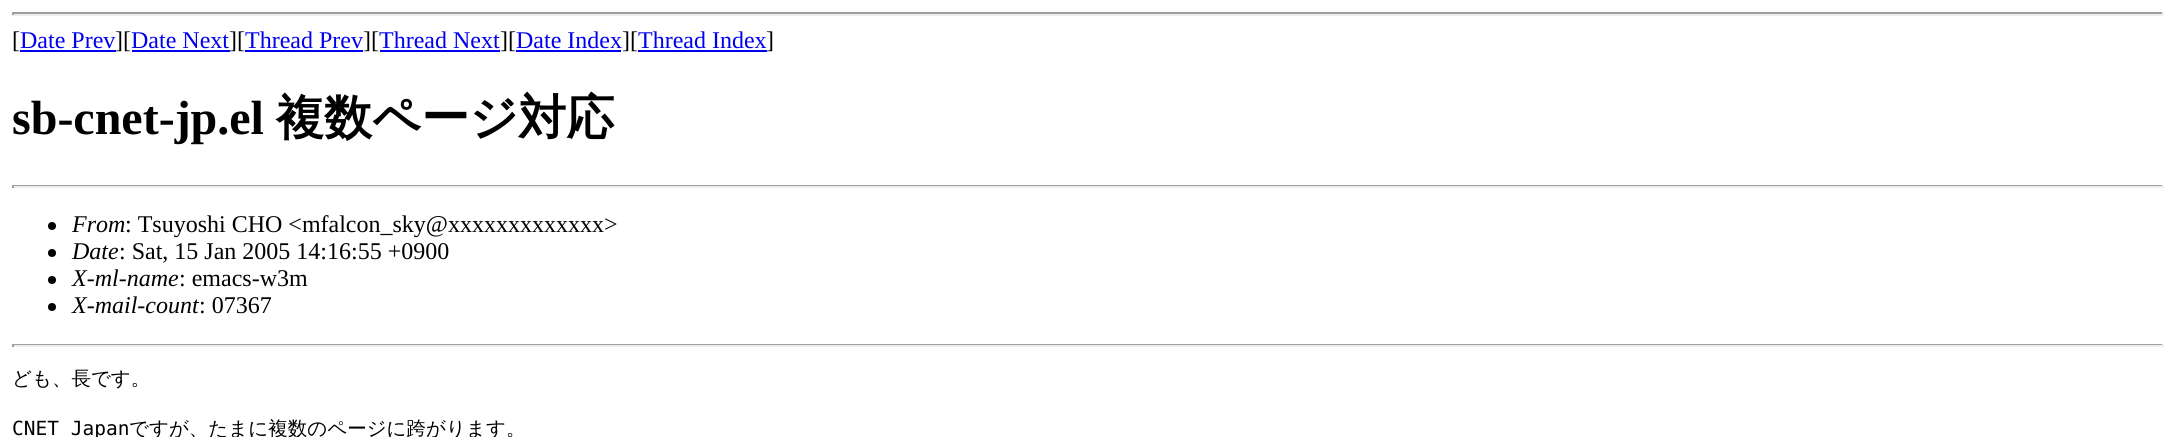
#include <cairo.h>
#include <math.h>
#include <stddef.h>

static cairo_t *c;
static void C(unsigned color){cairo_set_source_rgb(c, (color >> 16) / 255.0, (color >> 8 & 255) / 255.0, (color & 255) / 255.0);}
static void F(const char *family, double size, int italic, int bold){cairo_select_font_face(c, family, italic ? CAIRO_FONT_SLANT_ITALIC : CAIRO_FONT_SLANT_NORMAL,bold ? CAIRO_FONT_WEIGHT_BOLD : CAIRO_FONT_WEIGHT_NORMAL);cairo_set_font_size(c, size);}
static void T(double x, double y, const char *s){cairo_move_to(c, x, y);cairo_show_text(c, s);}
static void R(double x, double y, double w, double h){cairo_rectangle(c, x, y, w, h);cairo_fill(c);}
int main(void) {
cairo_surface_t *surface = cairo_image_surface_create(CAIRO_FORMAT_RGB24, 2175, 437);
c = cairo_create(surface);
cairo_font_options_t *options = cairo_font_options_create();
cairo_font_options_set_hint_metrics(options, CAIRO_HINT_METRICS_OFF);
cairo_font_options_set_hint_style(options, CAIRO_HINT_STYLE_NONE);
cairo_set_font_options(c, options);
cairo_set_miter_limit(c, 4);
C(0xffffff);
cairo_paint(c);
C(0x9f9f9f);
R(12,12,2151,2);
C(0xeeeeee);
R(2162,12,2,3);
R(12,14,2151,2);
C(0x9f9f9f);
R(12,12,2,3);
F("Liberation Serif",24,0,0);
C(0x000000);
T(12,48,"[");
C(0x0000ee);
T(20,48,"Date Prev");
R(20,50,96,2);
C(0x000000);
T(115,48,"][");
C(0x0000ee);
T(131,48,"Date Next");
R(132,50,98,2);
C(0x000000);
T(229,48,"][");
C(0x0000ee);
T(245,48,"Thread Prev");
R(245,50,118,2);
C(0x000000);
T(363,48,"][");
C(0x0000ee);
T(379,48,"Thread Next");
R(380,50,120,2);
C(0x000000);
T(500,48,"][");
C(0x0000ee);
T(516,48,"Date Index");
R(516,50,105,2);
C(0x000000);
T(622,48,"][");
C(0x0000ee);
T(638,48,"Thread Index");
R(638,50,129,2);
C(0x000000);
T(766,48,"]");
F("Liberation Serif",48,0,1);
T(12,134,"sb-cnet-jp.el");
F("WenQuanYi Zen Hei",48,0,1);
T(276,134,"複数ページ対応");
C(0x9f9f9f);
R(12,185,2151,1);
C(0xeeeeee);
R(2162,185,2,3);
R(12,186,2151,2);
C(0x9f9f9f);
R(12,185,2,3);
C(0x000000);
cairo_new_path(c);
cairo_arc(c,52,226,4,0,2 * M_PI);
cairo_fill(c);
F("Liberation Serif",24,1,0);
T(72,232,"From");
F("Liberation Serif",24,0,0);
T(125,232,": Tsuyoshi CHO <mfalcon_sky@xxxxxxxxxxxxx>");
cairo_new_path(c);
cairo_arc(c,52,253,4,0,2 * M_PI);
cairo_fill(c);
F("Liberation Serif",24,1,0);
T(72,259,"Date");
F("Liberation Serif",24,0,0);
T(119,259,": Sat, 15 Jan 2005 14:16:55 +0900");
cairo_new_path(c);
cairo_arc(c,52,280,4,0,2 * M_PI);
cairo_fill(c);
F("Liberation Serif",24,1,0);
T(72,286,"X-ml-name");
F("Liberation Serif",24,0,0);
T(179,286,": emacs-w3m");
cairo_new_path(c);
cairo_arc(c,52,307,4,0,2 * M_PI);
cairo_fill(c);
F("Liberation Serif",24,1,0);
T(72,313,"X-mail-count");
F("Liberation Serif",24,0,0);
T(199,313,": 07367");
C(0x9f9f9f);
R(12,344,2151,1);
C(0xeeeeee);
R(2162,344,2,3);
R(12,345,2151,2);
C(0x9f9f9f);
R(12,344,2,3);
F("WenQuanYi Zen Hei Medium",19.5,0,0);
C(0x000000);
T(12,385,"ども、長です。");
F("DejaVu Sans Mono",19.5,0,0);
T(12,435,"CNET Japan");
F("WenQuanYi Zen Hei Medium",19.5,0,0);
T(129,435,"ですが、たまに複数のページに跨がります。");
cairo_surface_write_to_png(surface, "o.png");
cairo_font_options_destroy(options);
cairo_destroy(c);
cairo_surface_destroy(surface);
return 0;
}
